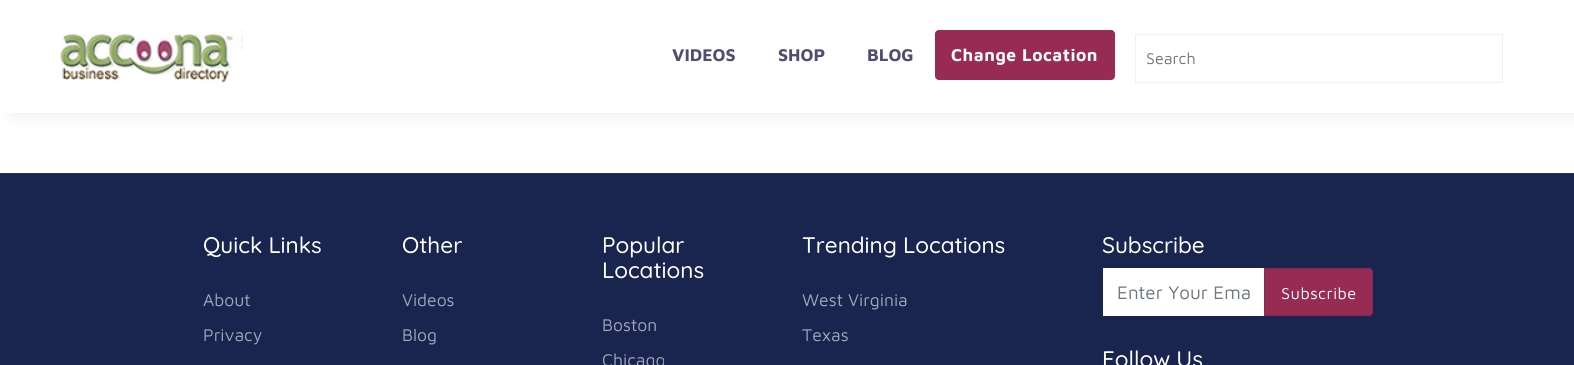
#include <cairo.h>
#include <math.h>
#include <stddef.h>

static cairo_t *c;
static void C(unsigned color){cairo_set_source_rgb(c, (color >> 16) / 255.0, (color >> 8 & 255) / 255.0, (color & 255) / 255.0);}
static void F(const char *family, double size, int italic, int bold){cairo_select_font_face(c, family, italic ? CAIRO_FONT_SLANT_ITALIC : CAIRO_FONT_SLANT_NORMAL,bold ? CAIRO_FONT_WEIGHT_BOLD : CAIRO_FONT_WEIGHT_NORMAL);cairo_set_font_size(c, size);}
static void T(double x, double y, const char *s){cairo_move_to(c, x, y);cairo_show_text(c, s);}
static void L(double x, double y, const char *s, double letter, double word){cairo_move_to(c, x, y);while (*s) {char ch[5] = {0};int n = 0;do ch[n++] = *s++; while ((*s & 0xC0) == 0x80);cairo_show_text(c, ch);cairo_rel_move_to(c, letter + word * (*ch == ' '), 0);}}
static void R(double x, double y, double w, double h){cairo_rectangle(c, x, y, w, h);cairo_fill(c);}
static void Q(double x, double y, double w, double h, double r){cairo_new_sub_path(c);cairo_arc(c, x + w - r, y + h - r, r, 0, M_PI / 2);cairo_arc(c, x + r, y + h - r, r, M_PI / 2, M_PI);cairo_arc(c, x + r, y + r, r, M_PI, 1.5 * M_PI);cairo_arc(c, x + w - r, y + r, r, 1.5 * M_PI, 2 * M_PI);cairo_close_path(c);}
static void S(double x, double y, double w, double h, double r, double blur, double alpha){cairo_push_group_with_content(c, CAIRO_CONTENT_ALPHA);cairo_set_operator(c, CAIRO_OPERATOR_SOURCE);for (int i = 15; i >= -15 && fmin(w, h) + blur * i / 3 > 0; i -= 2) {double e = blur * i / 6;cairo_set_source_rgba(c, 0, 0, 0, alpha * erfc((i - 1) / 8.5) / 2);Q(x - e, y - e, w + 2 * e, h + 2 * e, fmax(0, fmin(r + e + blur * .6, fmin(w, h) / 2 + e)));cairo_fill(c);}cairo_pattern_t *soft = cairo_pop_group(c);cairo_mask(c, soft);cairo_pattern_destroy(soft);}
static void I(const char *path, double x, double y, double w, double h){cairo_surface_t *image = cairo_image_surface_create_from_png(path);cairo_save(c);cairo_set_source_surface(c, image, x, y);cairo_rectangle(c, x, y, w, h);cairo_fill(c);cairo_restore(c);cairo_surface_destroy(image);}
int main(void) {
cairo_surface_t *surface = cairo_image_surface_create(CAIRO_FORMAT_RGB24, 1574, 365);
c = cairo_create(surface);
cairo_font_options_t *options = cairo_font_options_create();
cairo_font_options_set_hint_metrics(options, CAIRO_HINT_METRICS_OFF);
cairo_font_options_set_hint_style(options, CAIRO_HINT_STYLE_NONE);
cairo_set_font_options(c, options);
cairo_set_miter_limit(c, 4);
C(0xffffff);
cairo_paint(c);
C(0x05172d);
S(13,13,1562,100,0,9.5,.1);
C(0xffffff);
R(1,1,1573,112);
I("1.png",60,30,183,53);
F("Maven Pro",17.5,0,1);
C(0x504e70);
T(672,61,"VIDEOS");
T(778,61,"SHOP");
T(867,61,"BLOG");
C(0x972b54);
Q(935.5,30.5,179,49,3.5);
cairo_fill_preserve(c);
cairo_set_line_width(c,1);
cairo_stroke(c);
C(0xffffff);
L(951,61,"Change Location",.5,0);
cairo_rectangle(c,1135.5,34.5,367,48);
C(0xf0f0f0);
cairo_stroke(c);
F("Maven Pro",16,0,0);
C(0x6c757d);
T(1146,64,"Search");
C(0x19244f);
R(0,174,1574,191);
C(0x27325b);
R(0,173,1574,1);
F("Quicksand Medium",22.5,0,0);
C(0xffffff);
T(203,253,"Quick Links");
F("Maven Pro",17.5,0,0);
C(0xa3a7b9);
T(203,306,"About");
T(203,341,"Privacy");
F("Quicksand Medium",22.5,0,0);
C(0xffffff);
T(402,253,"Other");
F("Maven Pro",17.5,0,0);
C(0xa3a7b9);
T(402,306,"Videos");
T(402,341,"Blog");
F("Quicksand Medium",22.5,0,0);
C(0xffffff);
T(602,253,"Popular");
T(602,278,"Locations");
F("Maven Pro",17.5,0,0);
C(0xa3a7b9);
T(602,331,"Boston");
T(602,366,"Chicago");
F("Quicksand Medium",22.5,0,0);
C(0xffffff);
T(802,253,"Trending Locations");
F("Maven Pro",17.5,0,0);
C(0xa3a7b9);
T(802,306,"West Virginia");
T(802,341,"Texas");
F("Quicksand Medium",22.5,0,0);
C(0xffffff);
T(1102,253,"Subscribe");
R(1103,268,161,48);
cairo_save(c);
cairo_rectangle(c,1118,281,132,22);
cairo_clip(c);
F("Maven Pro",18.75,0,0);
C(0x6c757d);
T(1117,299,"Enter Your Ema");
cairo_restore(c);
C(0x972b54);
cairo_new_path(c);
cairo_move_to(c,1264,268);
cairo_line_to(c,1369,268);
cairo_curve_to(c,1371,268,1373,270,1373,272);
cairo_line_to(c,1373,312);
cairo_curve_to(c,1373,314,1371,316,1369,316);
cairo_line_to(c,1264,316);
cairo_close_path(c);
cairo_fill(c);
cairo_new_path(c);
cairo_move_to(c,1264.5,268.5);
cairo_line_to(c,1369,268.5);
cairo_curve_to(c,1371,268.5,1372.5,270,1372.5,272);
cairo_line_to(c,1372.5,312);
cairo_curve_to(c,1372.5,314,1371,315.5,1369,315.5);
cairo_line_to(c,1264.5,315.5);
cairo_close_path(c);
cairo_set_source_rgba(c,0,0.157,0.392,0.12);
cairo_stroke(c);
F("Maven Pro",16.25,0,0);
C(0xffffff);
L(1281,299,"Subscribe",.5,0);
F("Quicksand Medium",22.5,0,0);
T(1102,367,"Follow Us");
cairo_surface_write_to_png(surface, "o.png");
cairo_font_options_destroy(options);
cairo_destroy(c);
cairo_surface_destroy(surface);
return 0;
}
